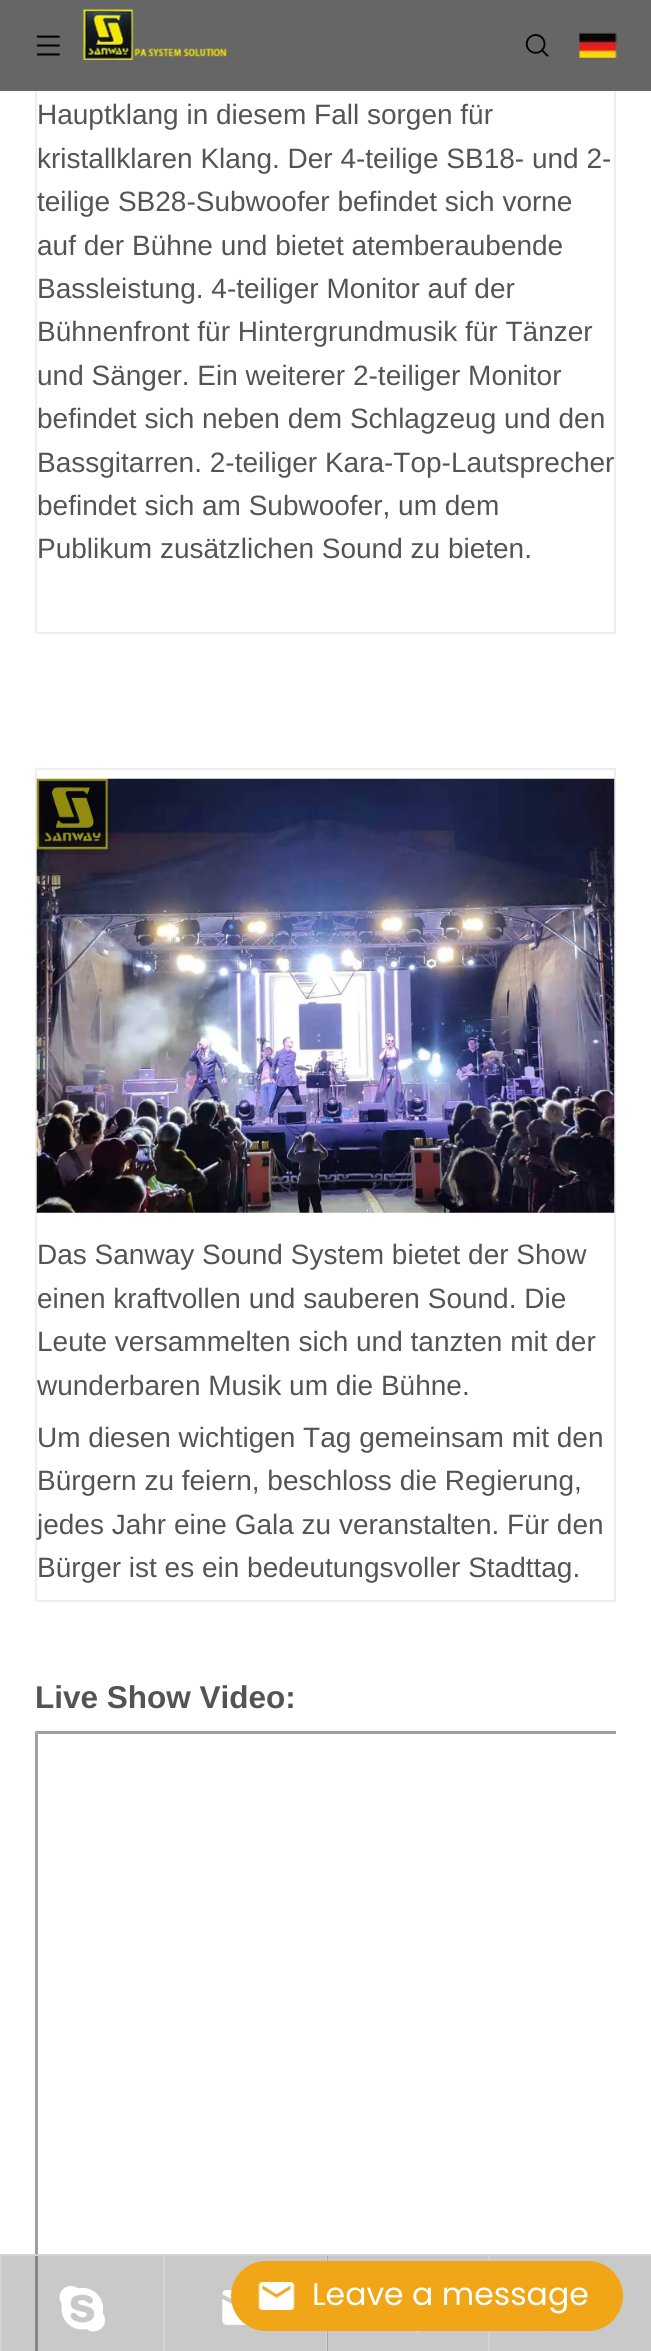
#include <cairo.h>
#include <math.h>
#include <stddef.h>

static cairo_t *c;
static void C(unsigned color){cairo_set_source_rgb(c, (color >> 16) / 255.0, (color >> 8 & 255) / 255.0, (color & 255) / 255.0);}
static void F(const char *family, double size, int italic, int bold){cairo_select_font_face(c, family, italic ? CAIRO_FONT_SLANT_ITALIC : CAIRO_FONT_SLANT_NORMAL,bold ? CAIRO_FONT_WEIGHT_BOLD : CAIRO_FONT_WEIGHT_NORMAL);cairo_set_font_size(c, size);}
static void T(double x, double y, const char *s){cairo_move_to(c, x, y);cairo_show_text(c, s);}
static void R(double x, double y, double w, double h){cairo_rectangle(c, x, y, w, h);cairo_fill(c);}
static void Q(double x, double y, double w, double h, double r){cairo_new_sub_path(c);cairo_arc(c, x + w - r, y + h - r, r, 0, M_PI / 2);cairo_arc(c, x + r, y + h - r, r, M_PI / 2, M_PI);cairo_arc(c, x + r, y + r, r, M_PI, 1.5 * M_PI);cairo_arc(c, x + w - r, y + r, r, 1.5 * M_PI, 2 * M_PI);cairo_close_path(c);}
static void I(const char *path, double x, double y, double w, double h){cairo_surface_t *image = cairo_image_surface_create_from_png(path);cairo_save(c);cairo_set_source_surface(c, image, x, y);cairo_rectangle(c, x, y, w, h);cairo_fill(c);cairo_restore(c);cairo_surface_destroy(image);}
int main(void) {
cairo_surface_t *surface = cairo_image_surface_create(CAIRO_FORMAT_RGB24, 651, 2351);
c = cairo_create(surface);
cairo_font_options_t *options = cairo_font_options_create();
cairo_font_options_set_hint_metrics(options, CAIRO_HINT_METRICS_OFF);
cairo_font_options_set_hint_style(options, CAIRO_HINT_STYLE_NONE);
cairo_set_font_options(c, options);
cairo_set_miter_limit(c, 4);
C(0xffffff);
cairo_paint(c);
C(0xc9c9c9);
R(328,2256,160,95);
C(0x666666);
R(0,0,651,91);
I("1.png",36,35,24,21);
I("2.png",83,9,144,51);
I("3.png",525,34,24,23);
I("4.png",578,32,39,26);
C(0xeeeeee);
R(614,91,2,543);
R(35,632,581,2);
R(35,91,2,543);
F("Liberation Sans",28,0,0);
C(0x545454);
T(37,124,"Hauptklang in diesem Fall sorgen für");
T(37,168,"kristallklaren Klang. Der 4-teilige SB18- und 2-");
T(37,211,"teilige SB28-Subwoofer befindet sich vorne");
T(37,255,"auf der Bühne und bietet atemberaubende");
T(37,298,"Bassleistung. 4-teiliger Monitor auf der");
T(37,341,"Bühnenfront für Hintergrundmusik für Tänzer");
T(37,385,"und Sänger. Ein weiterer 2-teiliger Monitor");
T(37,428,"befindet sich neben dem Schlagzeug und den");
T(37,472,"Bassgitarren. 2-teiliger Kara-Top-Lautsprecher");
T(37,515,"befindet sich am Subwoofer, um dem");
T(37,558,"Publikum zusätzlichen Sound zu bieten.");
C(0xeeeeee);
R(35,768,581,2);
R(614,768,2,833);
R(35,1600,581,2);
R(35,768,2,833);
I("5.png",36,778,579,435);
C(0x545454);
T(37,1264,"Das Sanway Sound System bietet der Show");
T(37,1308,"einen kraftvollen und sauberen Sound. Die");
T(37,1351,"Leute versammelten sich und tanzten mit der");
T(37,1395,"wunderbaren Musik um die Bühne.");
T(37,1447,"Um diesen wichtigen Tag gemeinsam mit den");
T(37,1490,"Bürgern zu feiern, beschloss die Regierung,");
T(37,1534,"jedes Jahr eine Gala zu veranstalten. Für den");
T(37,1577,"Bürger ist es ein bedeutungsvoller Stadttag.");
F("Liberation Sans",31.5,0,1);
T(35,1708,"Live Show Video:");
cairo_save(c);
cairo_rectangle(c,35,0,581,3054);
cairo_clip(c);
C(0x9f9f9f);
cairo_new_path(c);
cairo_move_to(c,35,1731);
cairo_line_to(c,623,1731);
cairo_line_to(c,620,1734);
cairo_line_to(c,38,1734);
cairo_close_path(c);
cairo_fill(c);
cairo_restore(c);
C(0x9f9f9f);
cairo_new_path(c);
cairo_move_to(c,35,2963);
cairo_line_to(c,35,1731);
cairo_line_to(c,38,1734);
cairo_line_to(c,38,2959);
cairo_close_path(c);
cairo_fill(c);
C(0xd3d3d3);
R(0,2254,651,2);
R(0,2256,2,95);
cairo_set_source_rgba(c,0.29,0.29,0.29,0.3);
R(2,2256,161,95);
I("6.png",59,2286,46,46);
C(0xd3d3d3);
R(163,2256,2,95);
C(0xc9c9c9);
R(165,2256,161,95);
I("7.png",222,2290,25,35);
C(0xd3d3d3);
R(326,2256,1,95);
C(0xaaaaaa);
R(327,2256,1,95);
I("8.png",415,2331,4,1);
C(0xd3d3d3);
R(488,2256,2,95);
C(0xc9c9c9);
R(490,2256,161,95);
I("9.png",548,2331,1,1);
C(0xf0a617);
Q(231,2261,392,70,35);
cairo_fill(c);
I("10.png",258,2282,37,28);
F("Poppins",31.5,0,0);
C(0xffffff);
T(312,2305,"Leave a message");
cairo_surface_write_to_png(surface, "o.png");
cairo_font_options_destroy(options);
cairo_destroy(c);
cairo_surface_destroy(surface);
return 0;
}
